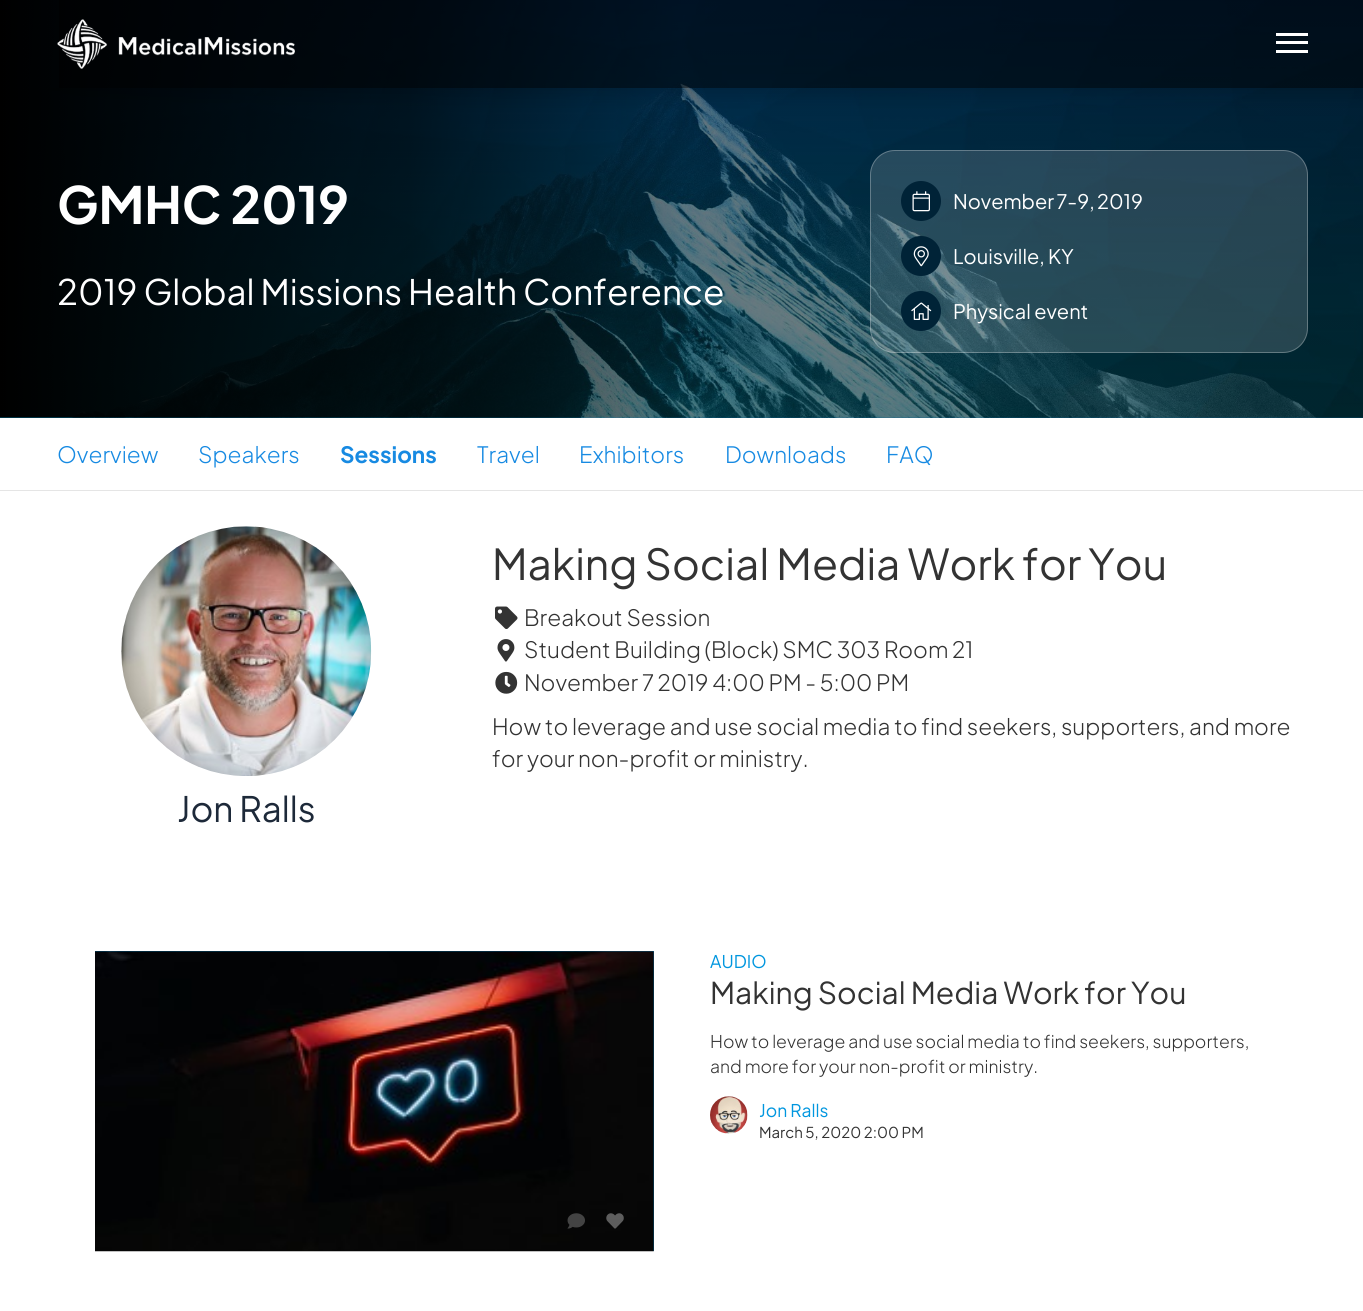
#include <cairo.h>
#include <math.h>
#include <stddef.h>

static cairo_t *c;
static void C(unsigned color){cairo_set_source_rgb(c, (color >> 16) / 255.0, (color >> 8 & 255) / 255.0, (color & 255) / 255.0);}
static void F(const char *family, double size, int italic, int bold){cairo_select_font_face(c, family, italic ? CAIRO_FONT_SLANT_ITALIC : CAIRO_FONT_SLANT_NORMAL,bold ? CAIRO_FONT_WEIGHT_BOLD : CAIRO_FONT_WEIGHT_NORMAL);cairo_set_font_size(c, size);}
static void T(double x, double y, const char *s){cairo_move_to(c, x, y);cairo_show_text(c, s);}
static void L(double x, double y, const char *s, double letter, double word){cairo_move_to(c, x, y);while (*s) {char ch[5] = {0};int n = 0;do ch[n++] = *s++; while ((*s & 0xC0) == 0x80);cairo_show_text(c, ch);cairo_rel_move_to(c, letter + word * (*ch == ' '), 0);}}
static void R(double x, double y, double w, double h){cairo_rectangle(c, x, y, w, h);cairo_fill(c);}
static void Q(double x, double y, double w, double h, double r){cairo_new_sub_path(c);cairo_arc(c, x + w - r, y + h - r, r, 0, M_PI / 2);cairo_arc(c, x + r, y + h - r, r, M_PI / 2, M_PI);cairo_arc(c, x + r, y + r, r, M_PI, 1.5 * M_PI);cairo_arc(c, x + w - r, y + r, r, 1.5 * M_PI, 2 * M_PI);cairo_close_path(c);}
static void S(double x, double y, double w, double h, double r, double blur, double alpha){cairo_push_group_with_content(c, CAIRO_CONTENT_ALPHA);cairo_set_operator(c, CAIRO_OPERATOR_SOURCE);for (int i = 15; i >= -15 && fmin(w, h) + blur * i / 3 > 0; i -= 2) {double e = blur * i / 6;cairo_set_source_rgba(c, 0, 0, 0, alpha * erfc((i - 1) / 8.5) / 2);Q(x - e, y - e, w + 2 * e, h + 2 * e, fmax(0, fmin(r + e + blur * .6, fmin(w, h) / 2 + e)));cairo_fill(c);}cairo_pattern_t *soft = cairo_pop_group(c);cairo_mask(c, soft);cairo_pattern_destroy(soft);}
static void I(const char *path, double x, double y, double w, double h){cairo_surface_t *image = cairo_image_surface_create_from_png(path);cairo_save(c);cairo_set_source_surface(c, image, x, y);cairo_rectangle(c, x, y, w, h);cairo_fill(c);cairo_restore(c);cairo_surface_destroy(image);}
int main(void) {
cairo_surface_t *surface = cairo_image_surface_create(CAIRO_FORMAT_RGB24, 1363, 1311);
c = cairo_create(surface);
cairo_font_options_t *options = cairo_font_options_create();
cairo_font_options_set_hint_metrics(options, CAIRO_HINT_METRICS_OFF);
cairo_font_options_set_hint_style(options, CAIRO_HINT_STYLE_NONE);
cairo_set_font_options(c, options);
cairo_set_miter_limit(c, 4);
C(0xffffff);
cairo_paint(c);
C(0x004165);
R(0,417,1363,1);
I("2.png",0,0,1363,418);
cairo_save(c);
cairo_set_fill_rule(c,CAIRO_FILL_RULE_EVEN_ODD);
cairo_new_path(c);
cairo_move_to(c,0,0);
cairo_line_to(c,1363,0);
cairo_line_to(c,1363,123);
cairo_line_to(c,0,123);
cairo_close_path(c);
cairo_move_to(c,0,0);
cairo_line_to(c,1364,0);
cairo_line_to(c,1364,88);
cairo_line_to(c,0,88);
cairo_close_path(c);
cairo_clip(c);
C(0x000000);
S(0,8,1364,87,0,9,.15);
cairo_restore(c);
cairo_set_source_rgba(c,0,0,0,0.5);
R(59,0,1304,88);
I("1.png",57,19,238,50);
C(0xffffff);
R(1276,33,32,3);
R(1276,41,32,3);
R(1276,50,32,3);
F("Plus Jakarta Sans",51.25,0,1);
T(57,224,"GMHC 2019");
F("Plus Jakarta Sans",35,0,0);
T(57,305,"2019 Global Missions Health Conference");
cairo_set_source_rgba(c,1,1,1,0.15);
Q(870,150,438,203,25);
cairo_fill(c);
Q(870.5,150.5,437,202,24.5);
cairo_set_source_rgba(c,1,1,1,0.28);
cairo_set_line_width(c,1);
cairo_stroke(c);
C(0x002337);
cairo_arc(c,921,201,20,0,2 * M_PI);
cairo_fill(c);
I("3.png",912,191,18,21);
F("Plus Jakarta Sans",20,0,0);
C(0xffffff);
L(953,209,"November 7-9, 2019",0,-1);
C(0x002337);
cairo_new_path(c);
cairo_arc(c,921,256,20,0,2 * M_PI);
cairo_fill(c);
I("4.png",913,246,16,21);
C(0xffffff);
T(953,264,"Louisville, KY");
C(0x002337);
cairo_new_path(c);
cairo_arc(c,921,311,20,0,2 * M_PI);
cairo_fill(c);
I("5.png",911,302,21,18);
C(0xffffff);
T(953,319,"Physical event");
C(0xe5e5e5);
R(0,490,1363,1);
F("Plus Jakarta Sans Light",22.5,0,0);
C(0x178ae2);
T(57,463,"Overview");
T(198,463,"Speakers");
F("Plus Jakarta Sans",22.5,0,1);
T(340,463,"Sessions");
F("Plus Jakarta Sans Light",22.5,0,0);
T(477,463,"Travel");
T(579,463,"Exhibitors");
T(725,463,"Downloads");
T(886,463,"FAQ");
F("Plus Jakarta Sans",42.5,0,0);
C(0x333333);
T(492,580,"Making Social Media Work for You");
I("6.png",495,606,23,23);
F("Plus Jakarta Sans Light",22.5,0,0);
T(524,626,"Breakout Session");
I("7.png",497,639,18,23);
T(524,658,"Student Building (Block) SMC 303 Room 21");
I("8.png",495,671,23,23);
T(524,691,"November 7 2019 4:00 PM - 5:00 PM");
T(492,735,"How to leverage and use social media to find seekers, supporters, and more");
T(492,767,"for your non-profit or ministry.");
I("9.png",121,526,251,250);
F("Plus Jakarta Sans",35,0,0);
C(0x1d2939);
T(177,822,"Jon Ralls");
C(0x0096df);
R(95,951,559,300);
I("10.png",95,951,559,301);
I("11.png",567,1213,18,16);
I("12.png",606,1213,18,16);
F("Plus Jakarta Sans",17.5,0,0);
T(710,968,"AUDIO");
F("Plus Jakarta Sans",30,0,0);
C(0x333333);
T(710,1004,"Making Social Media Work for You");
F("Plus Jakarta Sans Light",17.5,0,0);
T(710,1048,"How to leverage and use social media to find seekers, supporters,");
T(710,1073,"and more for your non-profit or ministry.");
I("13.png",710,1096,38,38);
F("Plus Jakarta Sans",17.5,0,0);
C(0x0096df);
T(759,1117,"Jon Ralls");
F("Plus Jakarta Sans",15,0,0);
C(0x333333);
T(759,1138,"March 5, 2020 2:00 PM");
cairo_surface_write_to_png(surface, "o.png");
cairo_font_options_destroy(options);
cairo_destroy(c);
cairo_surface_destroy(surface);
return 0;
}
